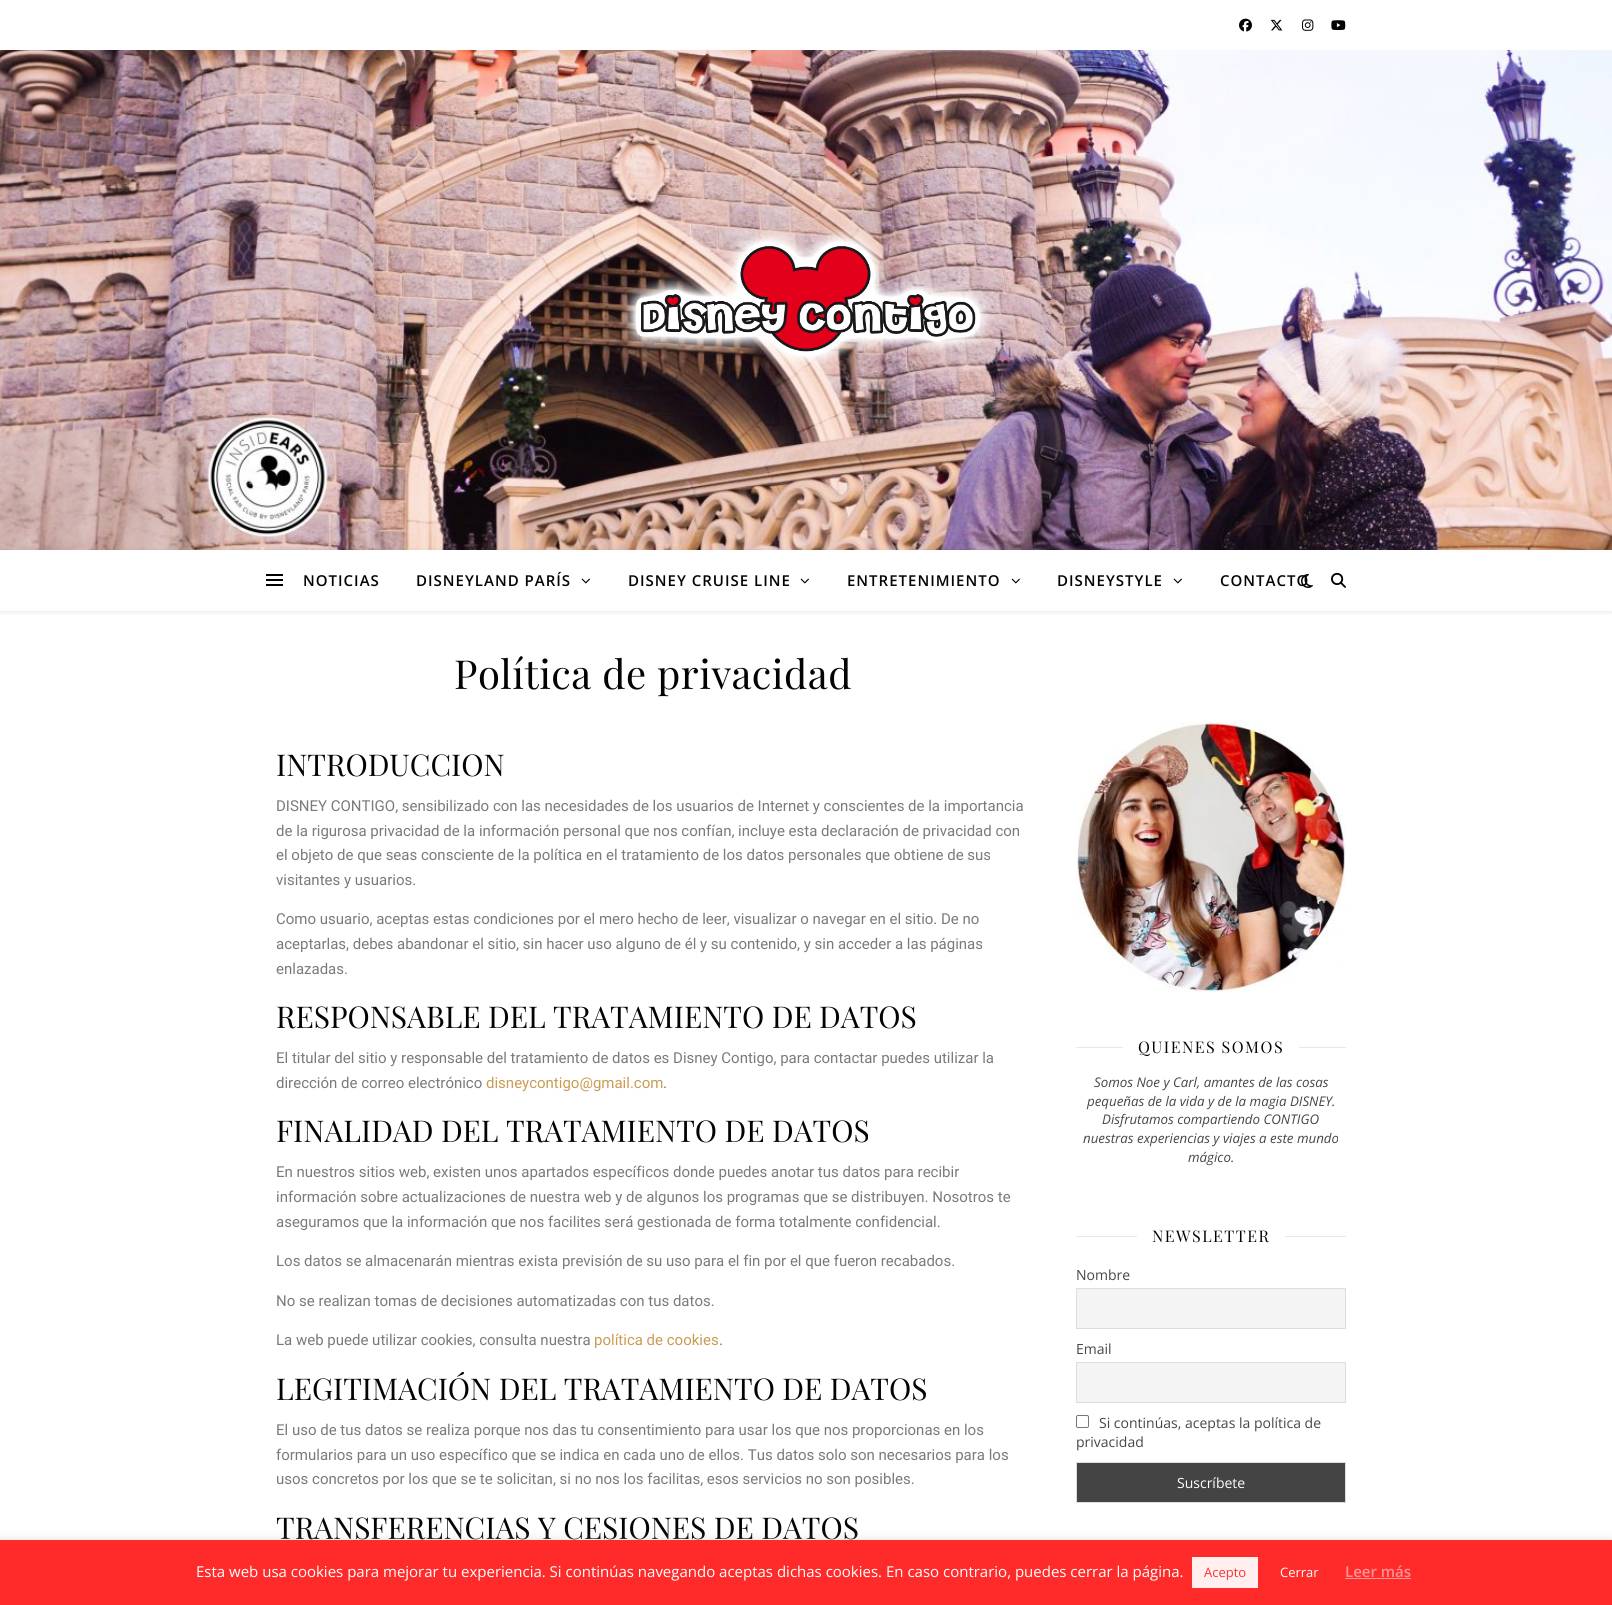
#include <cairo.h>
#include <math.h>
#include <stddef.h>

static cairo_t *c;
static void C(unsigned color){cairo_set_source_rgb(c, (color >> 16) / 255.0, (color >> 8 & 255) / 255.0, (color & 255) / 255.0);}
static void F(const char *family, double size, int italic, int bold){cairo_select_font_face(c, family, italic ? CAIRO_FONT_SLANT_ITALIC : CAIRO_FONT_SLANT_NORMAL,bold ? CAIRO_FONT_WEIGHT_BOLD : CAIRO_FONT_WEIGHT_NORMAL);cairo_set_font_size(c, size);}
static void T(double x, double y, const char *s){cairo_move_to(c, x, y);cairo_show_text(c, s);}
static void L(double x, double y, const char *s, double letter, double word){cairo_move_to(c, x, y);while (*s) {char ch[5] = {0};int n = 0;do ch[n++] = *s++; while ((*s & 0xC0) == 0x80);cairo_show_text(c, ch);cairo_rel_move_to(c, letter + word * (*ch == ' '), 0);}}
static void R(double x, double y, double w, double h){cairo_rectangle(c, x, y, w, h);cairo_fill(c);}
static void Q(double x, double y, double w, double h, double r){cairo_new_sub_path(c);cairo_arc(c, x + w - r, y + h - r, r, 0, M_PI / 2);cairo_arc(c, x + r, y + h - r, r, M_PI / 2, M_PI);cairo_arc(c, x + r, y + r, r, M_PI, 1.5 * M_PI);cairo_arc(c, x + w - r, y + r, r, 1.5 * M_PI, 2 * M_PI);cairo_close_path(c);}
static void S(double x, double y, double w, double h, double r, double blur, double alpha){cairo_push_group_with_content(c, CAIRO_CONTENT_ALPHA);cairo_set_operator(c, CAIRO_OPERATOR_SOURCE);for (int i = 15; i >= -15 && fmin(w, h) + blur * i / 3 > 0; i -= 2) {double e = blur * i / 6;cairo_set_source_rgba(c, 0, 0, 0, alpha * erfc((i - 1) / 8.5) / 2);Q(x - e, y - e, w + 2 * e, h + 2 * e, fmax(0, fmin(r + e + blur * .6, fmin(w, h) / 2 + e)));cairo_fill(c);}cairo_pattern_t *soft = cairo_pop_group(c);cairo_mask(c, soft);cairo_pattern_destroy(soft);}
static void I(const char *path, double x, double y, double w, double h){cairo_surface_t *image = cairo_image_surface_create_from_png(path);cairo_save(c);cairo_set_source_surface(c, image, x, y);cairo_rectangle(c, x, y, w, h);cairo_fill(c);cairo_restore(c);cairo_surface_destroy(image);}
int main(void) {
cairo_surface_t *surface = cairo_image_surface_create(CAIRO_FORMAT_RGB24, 1612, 1605);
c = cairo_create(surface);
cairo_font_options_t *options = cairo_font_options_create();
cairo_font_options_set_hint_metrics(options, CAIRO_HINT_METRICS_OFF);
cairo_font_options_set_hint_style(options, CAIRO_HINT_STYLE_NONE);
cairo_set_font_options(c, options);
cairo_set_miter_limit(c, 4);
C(0xffffff);
cairo_paint(c);
I("1.png",1239,18,13,14);
I("2.png",1270,19,13,12);
I("3.png",1302,19,12,12);
I("4.png",1331,20,15,10);
I("5.png",0,50,1612,500);
I("6.png",620,226,375,144);
cairo_save(c);
cairo_set_fill_rule(c,CAIRO_FILL_RULE_EVEN_ODD);
cairo_new_path(c);
cairo_move_to(c,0,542);
cairo_line_to(c,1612,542);
cairo_line_to(c,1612,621);
cairo_line_to(c,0,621);
cairo_close_path(c);
cairo_move_to(c,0,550);
cairo_line_to(c,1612,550);
cairo_line_to(c,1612,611);
cairo_line_to(c,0,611);
cairo_close_path(c);
cairo_clip(c);
C(0x000000);
S(0,551,1612,61,0,2.5,.1);
cairo_restore(c);
C(0x000000);
R(266,574,17,2);
R(266,579,17,2);
R(266,584,17,2);
F("Open Sans SemiBold",15,0,0);
C(0x030303);
L(303,586,"NOTICIAS",1,0);
L(416,586,"DISNEYLAND PARÍS",1,0);
I("7.png",581,578,9,6);
L(628,586,"DISNEY CRUISE LINE",1,0);
I("7.png",800,578,9,6);
L(847,586,"ENTRETENIMIENTO",1,0);
I("7.png",1011,578,9,6);
L(1057,586,"DISNEYSTYLE",1,0);
I("7.png",1173,578,9,6);
L(1220,586,"CONTACTO",1,0);
I("8.png",1301,574,12,14);
I("9.png",1331,572,15,16);
F("Playfair Display",40,0,0);
L(454,689,"Política de privacidad",.5,0);
F("Playfair Display",30,0,0);
T(276,776,"INTRODUCCION");
F("Roboto",15,0,0);
C(0x7a7a7a);
T(276,811,"DISNEY CONTIGO, sensibilizado con las necesidades de los usuarios de Internet y conscientes de la importancia");
T(276,836,"de la rigurosa privacidad de la información personal que nos confían, incluye esta declaración de privacidad con");
T(276,860,"el objeto de que seas consciente de la política en el tratamiento de los datos personales que obtiene de sus");
T(276,885,"visitantes y usuarios.");
T(276,924,"Como usuario, aceptas estas condiciones por el mero hecho de leer, visualizar o navegar en el sitio. De no");
T(276,949,"aceptarlas, debes abandonar el sitio, sin hacer uso alguno de él y su contenido, y sin acceder a las páginas");
T(276,974,"enlazadas.");
F("Playfair Display",30,0,0);
C(0x030303);
T(276,1028,"RESPONSABLE DEL TRATAMIENTO DE DATOS");
F("Roboto",15,0,0);
C(0x7a7a7a);
T(276,1063,"El titular del sitio y responsable del tratamiento de datos es Disney Contigo, para contactar puedes utilizar la");
T(276,1088,"dirección de correo electrónico");
C(0xca9b52);
T(486,1088,"disneycontigo@gmail.com");
C(0x7a7a7a);
T(663,1088,".");
F("Playfair Display",30,0,0);
C(0x030303);
T(276,1142,"FINALIDAD DEL TRATAMIENTO DE DATOS");
F("Roboto",15,0,0);
C(0x7a7a7a);
T(276,1177,"En nuestros sitios web, existen unos apartados específicos donde puedes anotar tus datos para recibir");
T(276,1202,"información sobre actualizaciones de nuestra web y de algunos los programas que se distribuyen. Nosotros te");
T(276,1227,"aseguramos que la información que nos facilites será gestionada de forma totalmente confidencial.");
T(276,1266,"Los datos se almacenarán mientras exista previsión de su uso para el fin por el que fueron recabados.");
T(276,1306,"No se realizan tomas de decisiones automatizadas con tus datos.");
T(276,1345,"La web puede utilizar cookies, consulta nuestra");
C(0xca9b52);
T(594,1345,"política de cookies");
C(0x7a7a7a);
T(719,1345,".");
F("Playfair Display",30,0,0);
C(0x030303);
T(276,1400,"LEGITIMACIÓN DEL TRATAMIENTO DE DATOS");
F("Roboto",15,0,0);
C(0x7a7a7a);
T(276,1435,"El uso de tus datos se realiza porque nos das tu consentimiento para usar los que nos proporcionas en los");
T(276,1460,"formularios para un uso específico que se indica en cada uno de ellos. Tus datos solo son necesarios para los");
T(276,1484,"usos concretos por los que se te solicitan, si no nos los facilitas, esos servicios no son posibles.");
F("Playfair Display",30,0,0);
C(0x030303);
T(276,1539,"TRANSFERENCIAS Y CESIONES DE DATOS");
I("10.png",1076,722,270,270);
C(0xe8e8e8);
R(1076,1047,47,1);
F("Playfair Display",16,0,0);
C(0x030303);
L(1138,1053,"QUIENES SOMOS",1.5,0);
C(0xe8e8e8);
R(1299,1047,47,1);
F("Open Sans",13.3,1,0);
C(0x464646);
T(1094,1087,"Somos Noe y Carl, amantes de las cosas");
T(1087,1106,"pequeñas de la vida y de la magia DISNEY.");
T(1102,1124,"Disfrutamos compartiendo CONTIGO");
T(1083,1143,"nuestras experiencias y viajes a este mundo");
T(1188,1162,"mágico.");
C(0xe8e8e8);
R(1076,1236,61,1);
F("Playfair Display",16,0,0);
C(0x030303);
L(1152,1242,"NEWSLETTER",1.5,0);
C(0xe8e8e8);
R(1285,1236,61,1);
F("Open Sans",14,0,0);
C(0x464646);
T(1076,1280,"Nombre");
C(0xf4f4f4);
cairo_rectangle(c,1076.5,1288.5,269,40);
cairo_fill_preserve(c);
C(0xdddddd);
cairo_set_line_width(c,1);
cairo_stroke(c);
C(0x464646);
T(1076,1354,"Email");
C(0xf4f4f4);
cairo_rectangle(c,1076.5,1362.5,269,40);
cairo_fill_preserve(c);
C(0xdddddd);
cairo_stroke(c);
Q(1076.5,1415.5,12,12,1.5);
C(0x767676);
cairo_stroke(c);
C(0x464646);
T(1099,1428,"Si continúas, aceptas la política de");
T(1076,1447,"privacidad");
C(0x444444);
cairo_rectangle(c,1076.5,1462.5,269,40);
cairo_fill_preserve(c);
C(0xdddddd);
cairo_stroke(c);
C(0xffffff);
T(1177,1488,"Suscríbete");
C(0xacabab);
S(0,1539,1612,65,0,5,.3);
C(0xff2b2b);
R(0,1540,1612,65);
F("Open Sans",15,0,0);
C(0xffffff);
T(196,1577,"Esta web usa cookies para mejorar tu experiencia. Si continúas navegando aceptas dichas cookies. En caso contrario, puedes cerrar la página.");
C(0xffefef);
R(1192,1557,66,31);
F("Open Sans",13,0,0);
C(0xff3233);
T(1204,1577,"Acepto");
C(0xffffff);
T(1280,1577,"Cerrar");
F("Open Sans SemiBold",15,0,0);
C(0xff9696);
T(1345,1577,"Leer más");
R(1345,1578,66,1);
cairo_surface_write_to_png(surface, "o.png");
cairo_font_options_destroy(options);
cairo_destroy(c);
cairo_surface_destroy(surface);
return 0;
}
